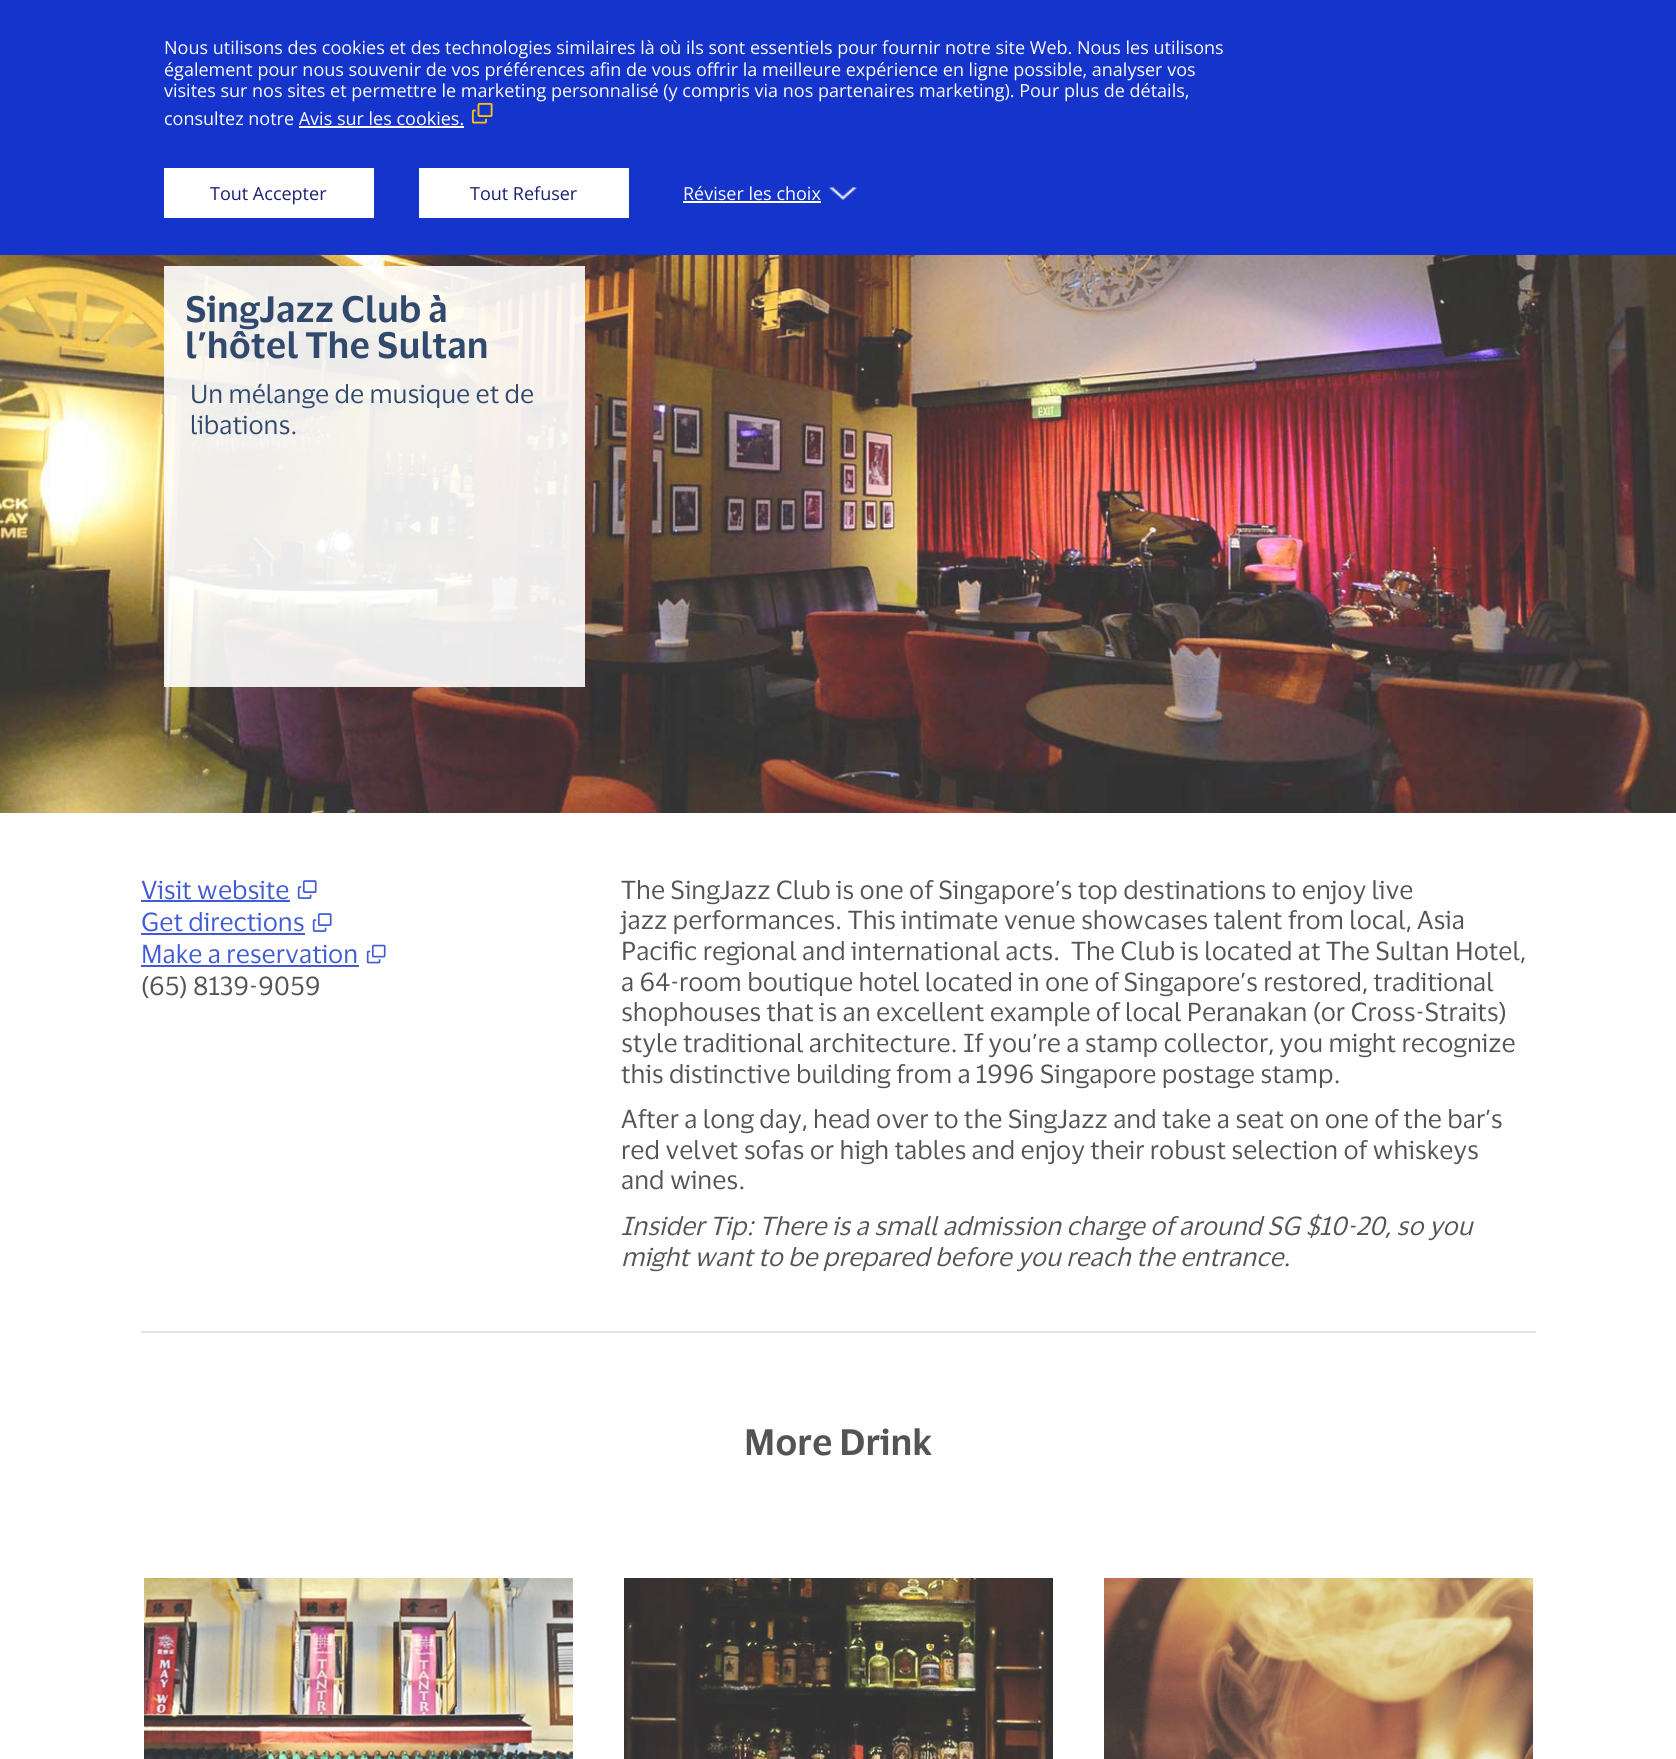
#include <cairo.h>
#include <math.h>
#include <stddef.h>

static cairo_t *c;
static void C(unsigned color){cairo_set_source_rgb(c, (color >> 16) / 255.0, (color >> 8 & 255) / 255.0, (color & 255) / 255.0);}
static void F(const char *family, double size, int italic, int bold){cairo_select_font_face(c, family, italic ? CAIRO_FONT_SLANT_ITALIC : CAIRO_FONT_SLANT_NORMAL,bold ? CAIRO_FONT_WEIGHT_BOLD : CAIRO_FONT_WEIGHT_NORMAL);cairo_set_font_size(c, size);}
static void T(double x, double y, const char *s){cairo_move_to(c, x, y);cairo_show_text(c, s);}
static void R(double x, double y, double w, double h){cairo_rectangle(c, x, y, w, h);cairo_fill(c);}
static void I(const char *path, double x, double y, double w, double h){cairo_surface_t *image = cairo_image_surface_create_from_png(path);cairo_save(c);cairo_set_source_surface(c, image, x, y);cairo_rectangle(c, x, y, w, h);cairo_fill(c);cairo_restore(c);cairo_surface_destroy(image);}
int main(void) {
cairo_surface_t *surface = cairo_image_surface_create(CAIRO_FORMAT_RGB24, 1676, 1759);
c = cairo_create(surface);
cairo_font_options_t *options = cairo_font_options_create();
cairo_font_options_set_hint_metrics(options, CAIRO_HINT_METRICS_OFF);
cairo_font_options_set_hint_style(options, CAIRO_HINT_STYLE_NONE);
cairo_set_font_options(c, options);
cairo_set_miter_limit(c, 4);
C(0xffffff);
cairo_paint(c);
C(0x1434cb);
R(0,0,1676,255);
F("Open Sans",18,0,0);
C(0xffffff);
T(164,54,"Nous utilisons des cookies et des technologies similaires là où ils sont essentiels pour fournir notre site Web. Nous les utilisons");
T(164,76,"également pour nous souvenir de vos préférences afin de vous offrir la meilleure expérience en ligne possible, analyser vos");
T(164,97,"visites sur nos sites et permettre le marketing personnalisé (y compris via nos partenaires marketing). Pour plus de détails,");
I("1.png",471,102,22,22);
R(299,126,165,2);
T(164,125,"consultez notre Avis sur les cookies.");
R(164,168,210,50);
C(0x1a1f72);
T(210,200,"Tout Accepter");
C(0xffffff);
R(419,168,210,50);
C(0x1a1f72);
T(470,200,"Tout Refuser");
C(0xffffff);
T(683,200,"Réviser les choix");
R(683,201,138,2);
I("2.png",829,187,28,13);
I("3.png",0,255,1676,558);
cairo_set_source_rgba(c,1,1,1,0.9);
R(164,266,421,421);
F("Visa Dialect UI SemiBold",36,0,0);
C(0x32496e);
T(185,322,"SingJazz Club à");
T(185,358,"l’hôtel The Sultan");
F("Visa Dialect UI",25.5,0,0);
T(190,403,"Un mélange de musique et de");
T(190,434,"libations.");
C(0x415bd5);
T(141,899,"Visit website");
R(141,900,149,2);
I("4.png",297,880,20,19);
T(141,931,"Get directions");
R(141,933,164,2);
I("4.png",312,913,20,19);
T(141,963,"Make a reservation");
R(141,965,218,2);
I("5.png",366,944,20,20);
C(0x545454);
T(141,995,"(65) 8139-9059");
T(621,899,"The SingJazz Club is one of Singapore’s top destinations to enjoy live");
T(621,929,"jazz performances. This intimate venue showcases talent from local, Asia");
T(621,960,"Pacific regional and international acts.  The Club is located at The Sultan Hotel,");
T(621,991,"a 64-room boutique hotel located in one of Singapore’s restored, traditional");
T(621,1021,"shophouses that is an excellent example of local Peranakan (or Cross-Straits)");
T(621,1052,"style traditional architecture. If you’re a stamp collector, you might recognize");
T(621,1083,"this distinctive building from a 1996 Singapore postage stamp.");
T(621,1128,"After a long day, head over to the SingJazz and take a seat on one of the bar’s");
T(621,1159,"red velvet sofas or high tables and enjoy their robust selection of whiskeys");
T(621,1189,"and wines.");
F("Visa Dialect UI",25.5,1,0);
T(621,1235,"Insider Tip: There is a small admission charge of around SG $10-20, so you");
T(621,1266,"might want to be prepared before you reach the entrance.");
C(0xe4e4e4);
R(141,1331,1395,2);
F("Visa Dialect UI SemiBold",36,0,0);
C(0x545454);
T(744,1455,"More Drink");
I("6.png",144,1578,429,181);
I("7.png",624,1578,429,181);
I("8.png",1104,1578,429,181);
cairo_surface_write_to_png(surface, "o.png");
cairo_font_options_destroy(options);
cairo_destroy(c);
cairo_surface_destroy(surface);
return 0;
}
